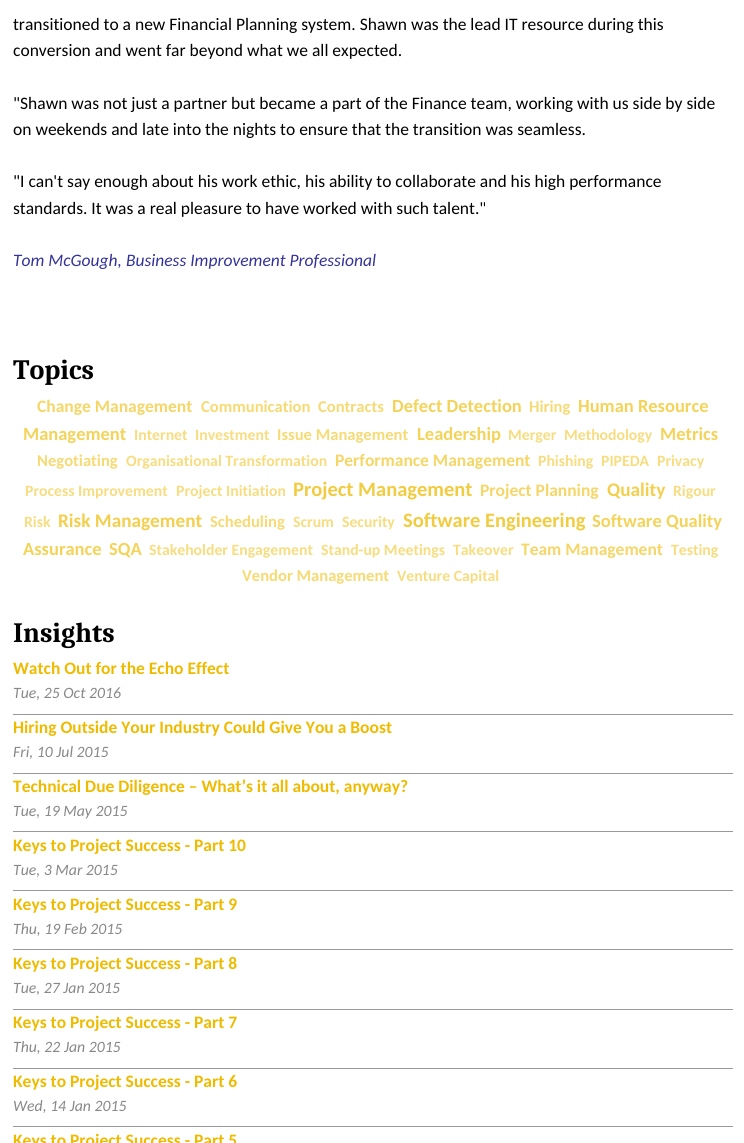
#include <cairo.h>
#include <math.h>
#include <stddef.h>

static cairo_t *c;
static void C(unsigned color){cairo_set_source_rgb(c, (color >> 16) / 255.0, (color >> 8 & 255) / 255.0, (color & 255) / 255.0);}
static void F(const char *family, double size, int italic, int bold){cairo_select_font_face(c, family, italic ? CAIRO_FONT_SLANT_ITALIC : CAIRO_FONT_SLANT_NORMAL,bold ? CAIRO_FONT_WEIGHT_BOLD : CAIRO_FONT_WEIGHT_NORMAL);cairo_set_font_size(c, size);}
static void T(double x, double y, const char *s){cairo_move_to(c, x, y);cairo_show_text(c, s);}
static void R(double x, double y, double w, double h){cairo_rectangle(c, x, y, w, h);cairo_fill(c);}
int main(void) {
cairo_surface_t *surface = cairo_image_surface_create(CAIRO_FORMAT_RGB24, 744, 1143);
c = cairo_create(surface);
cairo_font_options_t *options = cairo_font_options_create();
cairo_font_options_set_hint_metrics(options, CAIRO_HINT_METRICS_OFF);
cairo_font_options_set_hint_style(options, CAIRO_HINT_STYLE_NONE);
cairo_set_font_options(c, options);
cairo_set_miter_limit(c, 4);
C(0xffffff);
cairo_paint(c);
F("Carlito",17.5,0,0);
C(0x000000);
T(13,30,"transitioned to a new Financial Planning system. Shawn was the lead IT resource during this");
T(13,56,"conversion and went far beyond what we all expected.");
T(13,109,"\"Shawn was not just a partner but became a part of the Finance team, working with us side by side");
T(13,135,"on weekends and late into the nights to ensure that the transition was seamless.");
T(13,187,"\"I can't say enough about his work ethic, his ability to collaborate and his high performance");
T(13,214,"standards. It was a real pleasure to have worked with such talent.\"");
F("Carlito",17.5,1,0);
C(0x333399);
T(13,266,"Tom McGough, Business Improvement Professional");
F("Caladea",28,0,1);
C(0x000000);
T(13,379,"Topics");
F("Carlito",17.5,0,1);
C(0xf5d666);
T(37,412,"Change Management");
F("Carlito",16.6,0,1);
C(0xf6da73);
T(201,412,"Communication");
T(318,412,"Contracts");
F("Carlito",18.5,0,1);
C(0xf4d359);
T(392,412,"Defect Detection");
F("Carlito",16.6,0,1);
C(0xf6da73);
T(529,412,"Hiring");
F("Carlito",18.5,0,1);
C(0xf4d359);
T(578,412,"Human Resource");
T(23,440,"Management");
F("Carlito",15.75,0,1);
C(0xf7dd80);
T(134,440,"Internet");
T(195,440,"Investment");
F("Carlito",16.6,0,1);
C(0xf6da73);
T(277,440,"Issue Management");
F("Carlito",18.5,0,1);
C(0xf4d359);
T(417,440,"Leadership");
F("Carlito",15.75,0,1);
C(0xf7dd80);
T(508,440,"Merger");
T(564,440,"Methodology");
F("Carlito",18.5,0,1);
C(0xf4d359);
T(660,440,"Metrics");
F("Carlito",16.6,0,1);
C(0xf6da73);
T(37,466,"Negotiating");
F("Carlito",15.75,0,1);
C(0xf7dd80);
T(126,466,"Organisational Transformation");
F("Carlito",17.5,0,1);
C(0xf5d666);
T(335,466,"Performance Management");
F("Carlito",15.75,0,1);
C(0xf7dd80);
T(538,466,"Phishing");
T(601,466,"PIPEDA");
T(657,466,"Privacy");
T(25,496,"Process Improvement");
T(176,496,"Project Initiation");
F("Carlito",20.5,0,1);
C(0xf2cc40);
T(293,496,"Project Management");
F("Carlito",17.5,0,1);
C(0xf5d666);
T(480,496,"Project Planning");
F("Carlito",19.25,0,1);
C(0xf3cf4d);
T(607,496,"Quality");
F("Carlito",15.75,0,1);
C(0xf7dd80);
T(673,496,"Rigour");
T(24,527,"Risk");
F("Carlito",19.25,0,1);
C(0xf3cf4d);
T(58,527,"Risk Management");
F("Carlito",16.6,0,1);
C(0xf6da73);
T(210,527,"Scheduling");
F("Carlito",15.75,0,1);
C(0xf7dd80);
T(293,527,"Scrum");
T(342,527,"Security");
F("Carlito",20.5,0,1);
C(0xf2cc40);
T(403,527,"Software Engineering");
F("Carlito",18.5,0,1);
C(0xf4d359);
T(592,527,"Software Quality");
T(23,555,"Assurance");
T(109,555,"SQA");
F("Carlito",15.75,0,1);
C(0xf7dd80);
T(149,555,"Stakeholder Engagement");
T(321,555,"Stand-up Meetings");
T(453,555,"Takeover");
F("Carlito",17.5,0,1);
C(0xf5d666);
T(521,555,"Team Management");
F("Carlito",15.75,0,1);
C(0xf7dd80);
T(671,555,"Testing");
F("Carlito",16.6,0,1);
C(0xf6da73);
T(242,581,"Vendor Management");
F("Carlito",15.75,0,1);
C(0xf7dd80);
T(397,581,"Venture Capital");
F("Caladea",28,0,1);
C(0x000000);
T(13,642,"Insights");
C(0x999999);
R(13,714,720,1);
F("Carlito",17.5,0,1);
C(0xeebb00);
T(13,674,"Watch Out for the Echo Effect");
F("Carlito",15.75,1,0);
C(0x888888);
T(13,698,"Tue, 25 Oct 2016");
C(0x999999);
R(13,773,720,1);
F("Carlito",17.5,0,1);
C(0xeebb00);
T(13,733,"Hiring Outside Your Industry Could Give You a Boost");
F("Carlito",15.75,1,0);
C(0x888888);
T(13,757,"Fri, 10 Jul 2015");
C(0x999999);
R(13,831,720,1);
F("Carlito",17.5,0,1);
C(0xeebb00);
T(13,792,"Technical Due Diligence – What’s it all about, anyway?");
F("Carlito",15.75,1,0);
C(0x888888);
T(13,816,"Tue, 19 May 2015");
C(0x999999);
R(13,890,720,1);
F("Carlito",17.5,0,1);
C(0xeebb00);
T(13,851,"Keys to Project Success - Part 10");
F("Carlito",15.75,1,0);
C(0x888888);
T(13,875,"Tue, 3 Mar 2015");
C(0x999999);
R(13,949,720,1);
F("Carlito",17.5,0,1);
C(0xeebb00);
T(13,910,"Keys to Project Success - Part 9");
F("Carlito",15.75,1,0);
C(0x888888);
T(13,934,"Thu, 19 Feb 2015");
C(0x999999);
R(13,1009,720,1);
F("Carlito",17.5,0,1);
C(0xeebb00);
T(13,969,"Keys to Project Success - Part 8");
F("Carlito",15.75,1,0);
C(0x888888);
T(13,993,"Tue, 27 Jan 2015");
C(0x999999);
R(13,1068,720,1);
F("Carlito",17.5,0,1);
C(0xeebb00);
T(13,1028,"Keys to Project Success - Part 7");
F("Carlito",15.75,1,0);
C(0x888888);
T(13,1052,"Thu, 22 Jan 2015");
C(0x999999);
R(13,1126,720,1);
F("Carlito",17.5,0,1);
C(0xeebb00);
T(13,1087,"Keys to Project Success - Part 6");
F("Carlito",15.75,1,0);
C(0x888888);
T(13,1111,"Wed, 14 Jan 2015");
F("Carlito",17.5,0,1);
C(0xeebb00);
T(13,1146,"Keys to Project Success - Part 5");
cairo_surface_write_to_png(surface, "o.png");
cairo_font_options_destroy(options);
cairo_destroy(c);
cairo_surface_destroy(surface);
return 0;
}
